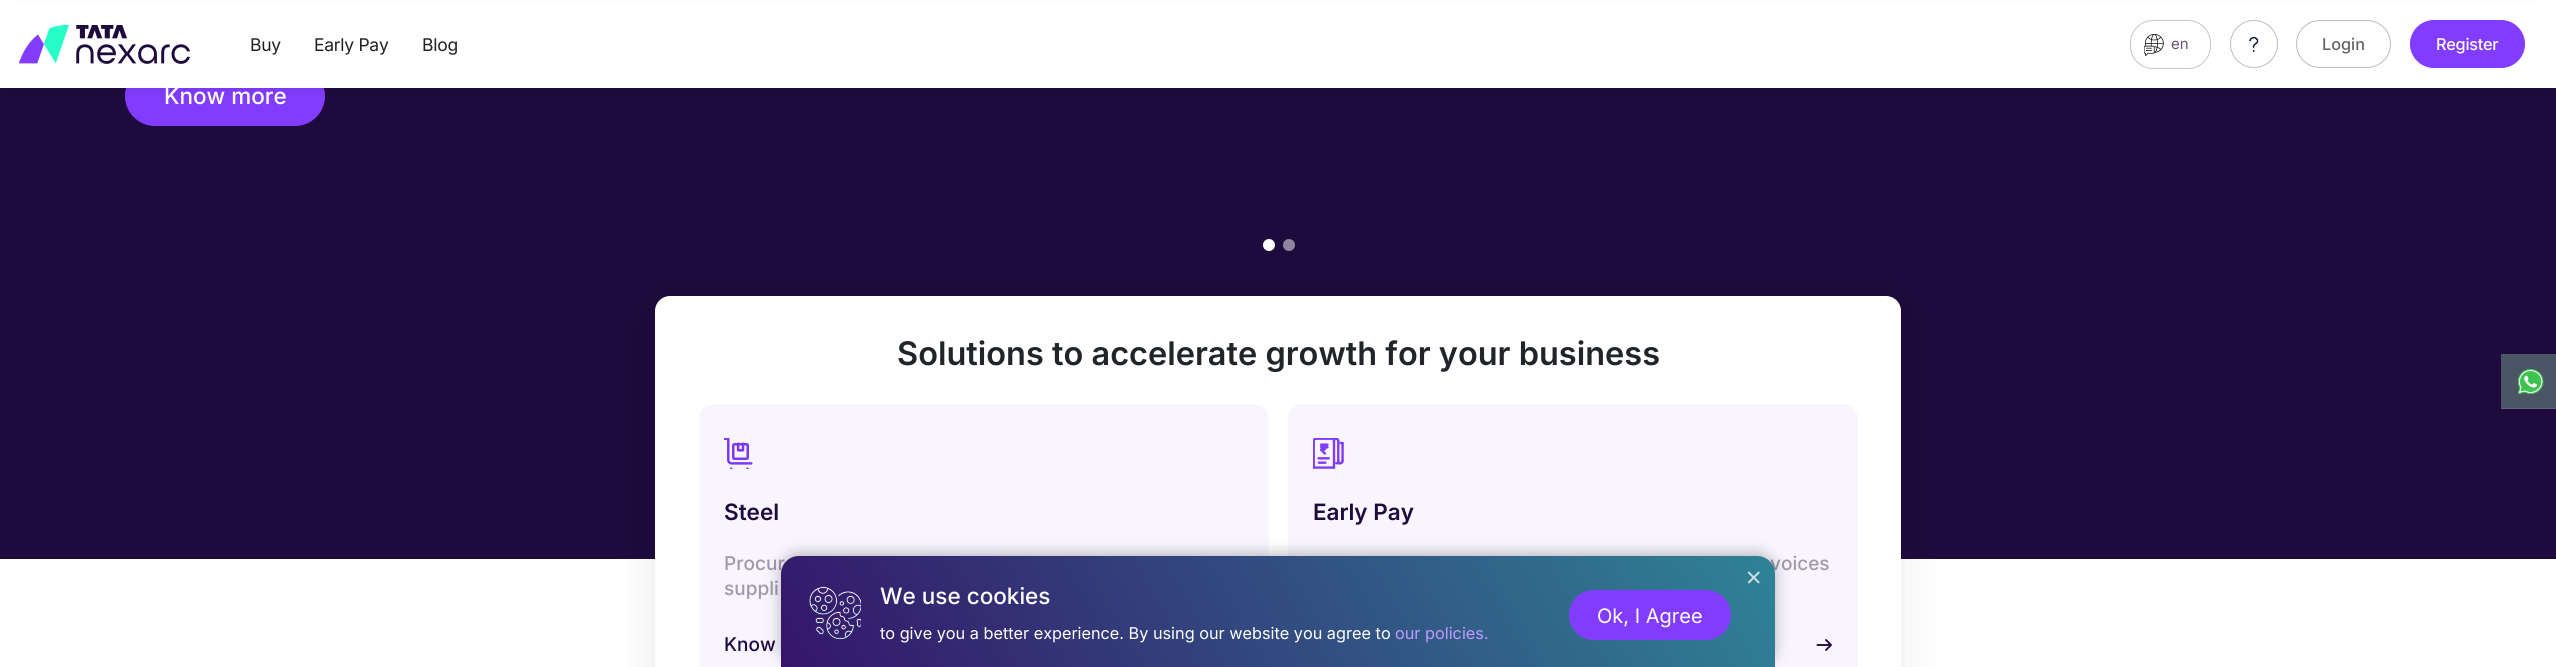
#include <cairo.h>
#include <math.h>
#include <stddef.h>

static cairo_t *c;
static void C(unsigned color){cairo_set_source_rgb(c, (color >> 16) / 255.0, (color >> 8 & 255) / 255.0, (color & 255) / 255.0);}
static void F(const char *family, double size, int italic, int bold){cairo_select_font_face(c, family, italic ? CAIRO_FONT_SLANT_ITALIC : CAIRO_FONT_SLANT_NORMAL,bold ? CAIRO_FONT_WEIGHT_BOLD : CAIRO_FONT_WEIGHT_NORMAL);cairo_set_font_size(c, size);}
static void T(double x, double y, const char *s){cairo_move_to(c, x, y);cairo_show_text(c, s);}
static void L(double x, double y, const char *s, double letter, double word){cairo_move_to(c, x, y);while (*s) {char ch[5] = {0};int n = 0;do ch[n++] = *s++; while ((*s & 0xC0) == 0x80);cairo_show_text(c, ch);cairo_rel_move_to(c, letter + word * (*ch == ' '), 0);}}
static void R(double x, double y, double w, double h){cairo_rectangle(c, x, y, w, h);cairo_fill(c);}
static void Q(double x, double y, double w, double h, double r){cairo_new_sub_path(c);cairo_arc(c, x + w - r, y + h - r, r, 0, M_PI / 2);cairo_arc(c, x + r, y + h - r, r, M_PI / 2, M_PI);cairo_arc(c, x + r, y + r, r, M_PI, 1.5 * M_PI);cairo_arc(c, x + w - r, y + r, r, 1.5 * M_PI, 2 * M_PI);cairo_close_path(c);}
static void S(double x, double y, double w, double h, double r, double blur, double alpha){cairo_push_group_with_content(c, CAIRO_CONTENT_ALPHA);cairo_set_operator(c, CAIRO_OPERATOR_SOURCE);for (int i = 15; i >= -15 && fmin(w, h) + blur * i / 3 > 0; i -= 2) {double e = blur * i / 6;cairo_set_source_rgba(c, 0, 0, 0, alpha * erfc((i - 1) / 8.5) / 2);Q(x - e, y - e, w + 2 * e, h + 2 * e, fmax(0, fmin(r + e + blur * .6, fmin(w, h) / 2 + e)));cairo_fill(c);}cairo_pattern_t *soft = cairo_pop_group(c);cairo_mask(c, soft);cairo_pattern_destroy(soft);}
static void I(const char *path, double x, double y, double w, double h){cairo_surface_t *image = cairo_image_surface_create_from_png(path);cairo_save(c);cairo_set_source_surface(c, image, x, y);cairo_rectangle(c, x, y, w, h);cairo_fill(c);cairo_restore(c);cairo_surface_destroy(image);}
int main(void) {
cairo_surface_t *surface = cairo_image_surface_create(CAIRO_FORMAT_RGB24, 2556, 667);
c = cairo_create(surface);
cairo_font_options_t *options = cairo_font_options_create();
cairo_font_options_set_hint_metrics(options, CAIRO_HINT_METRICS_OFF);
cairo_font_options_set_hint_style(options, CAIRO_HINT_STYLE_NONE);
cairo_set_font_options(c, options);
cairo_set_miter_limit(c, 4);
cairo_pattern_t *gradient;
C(0xffffff);
cairo_paint(c);
C(0x1e0a3c);
R(0,88,2556,471);
C(0x823cff);
Q(125.5,66.5,199,59,29.5);
cairo_fill_preserve(c);
cairo_set_line_width(c,1);
cairo_stroke(c);
C(0x000000);
S(11,18,2534,65,0,9.5,.2);
C(0xffffff);
R(0,2,2556,86);
I("1.png",19,25,171,39);
F("Inter",17.5,0,0);
C(0x212123);
L(250,51,"Buy",-.25,0);
L(314,51,"Early Pay",-.25,0);
L(422,51,"Blog",-.25,0);
Q(2130.5,20.5,80,48,22.5);
C(0xc5c5c5);
cairo_stroke(c);
I("2.png",2144,34,20,22);
F("Inter",15,0,0);
C(0x625477);
T(2171,49,"en");
cairo_new_path(c);
cairo_arc(c,2254,44,23.5,0,2 * M_PI);
C(0xbcbcbd);
cairo_stroke(c);
I("3.png",2248,36,11,16);
Q(2296.5,20.5,94,47,23.5);
cairo_stroke(c);
F("Inter Medium",16.25,0,0);
C(0x646465);
T(2322,50,"Login");
C(0x823cff);
Q(2410.5,20.5,114,47,23.5);
cairo_fill_preserve(c);
cairo_stroke(c);
C(0xffffff);
L(2436,50,"Register",-.25,0);
F("Inter Medium",22.5,0,0);
T(164,104,"Know more");
cairo_new_path(c);
cairo_arc(c,1269,245,6,0,2 * M_PI);
cairo_fill(c);
C(0x8f859e);
cairo_arc(c,1289,245,6,0,2 * M_PI);
cairo_fill(c);
C(0x000000);
S(655,309,1246,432,15,24.5,.08);
C(0xffffff);
Q(655,296,1246,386,15);
cairo_fill(c);
F("Inter SemiBold",32.5,0,0);
C(0x212529);
T(897,365,"Solutions to accelerate growth for your business");
C(0xf8f5fe);
Q(699,404,570,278,15);
cairo_fill(c);
I("4.png",724,438,29,31);
F("Inter SemiBold",22.5,0,0);
C(0x1e0a3c);
T(724,520,"Steel");
F("Inter Medium",19,0,0);
C(0x9f99ac);
T(724,570,"Procur");
T(724,595,"suppli");
C(0x1e0a3c);
T(724,651,"Know");
C(0xf8f5fe);
Q(1288,404,570,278,15);
cairo_fill(c);
I("5.png",1313,438,31,31);
F("Inter SemiBold",22.5,0,0);
C(0x1e0a3c);
T(1313,520,"Early Pay");
F("Inter Medium",19,0,0);
C(0x9f99ac);
T(1770,570,"voices");
cairo_new_path(c);
cairo_move_to(c,1817.5,645);
cairo_line_to(c,1831,645);
cairo_move_to(c,1826,650);
cairo_line_to(c,1831,645);
cairo_line_to(c,1826,640);
C(0x1e0a3c);
cairo_set_line_width(c,1.9);
cairo_set_line_cap(c,CAIRO_LINE_CAP_ROUND);
cairo_set_line_join(c,CAIRO_LINE_JOIN_ROUND);
cairo_stroke(c);
C(0x4a5666);
R(2501,354,55,54);
C(0x5f6a78);
R(2501,408,55,1);
I("6.png",2518,369,26,26);
C(0x000000);
S(781,554,994,111,18,7.5,.28);
gradient = cairo_pattern_create_linear(1675,383,881,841);
cairo_pattern_add_color_stop_rgba(gradient,0,0.184,0.514,0.588,1);
cairo_pattern_add_color_stop_rgba(gradient,1,0.208,0.082,0.416,1);
cairo_set_source(c,gradient);
cairo_pattern_destroy(gradient);
cairo_new_path(c);
cairo_move_to(c,799,556);
cairo_line_to(c,1757,556);
cairo_curve_to(c,1767,556,1775,564,1775,574);
cairo_line_to(c,1775,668);
cairo_line_to(c,781,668);
cairo_line_to(c,781,574);
cairo_curve_to(c,781,564,789,556,799,556);
cairo_close_path(c);
cairo_fill(c);
I("7.png",1747,571,13,13);
I("8.png",809,586,52,53);
F("Inter Medium",22.5,0,0);
C(0xffffff);
T(880,604,"We use cookies");
F("Inter",16.25,0,0);
T(880,639,"to give you a better experience. By using our website you agree to");
C(0xc09bff);
T(1395,639,"our policies.");
C(0x823cff);
Q(1569.5,590.5,161,49,24.5);
cairo_fill_preserve(c);
cairo_set_line_width(c,1);
cairo_set_line_cap(c,CAIRO_LINE_CAP_BUTT);
cairo_set_line_join(c,CAIRO_LINE_JOIN_MITER);
cairo_stroke(c);
F("Inter",20,0,0);
C(0xffffff);
T(1597,623,"Ok, I Agree");
cairo_surface_write_to_png(surface, "o.png");
cairo_font_options_destroy(options);
cairo_destroy(c);
cairo_surface_destroy(surface);
return 0;
}
